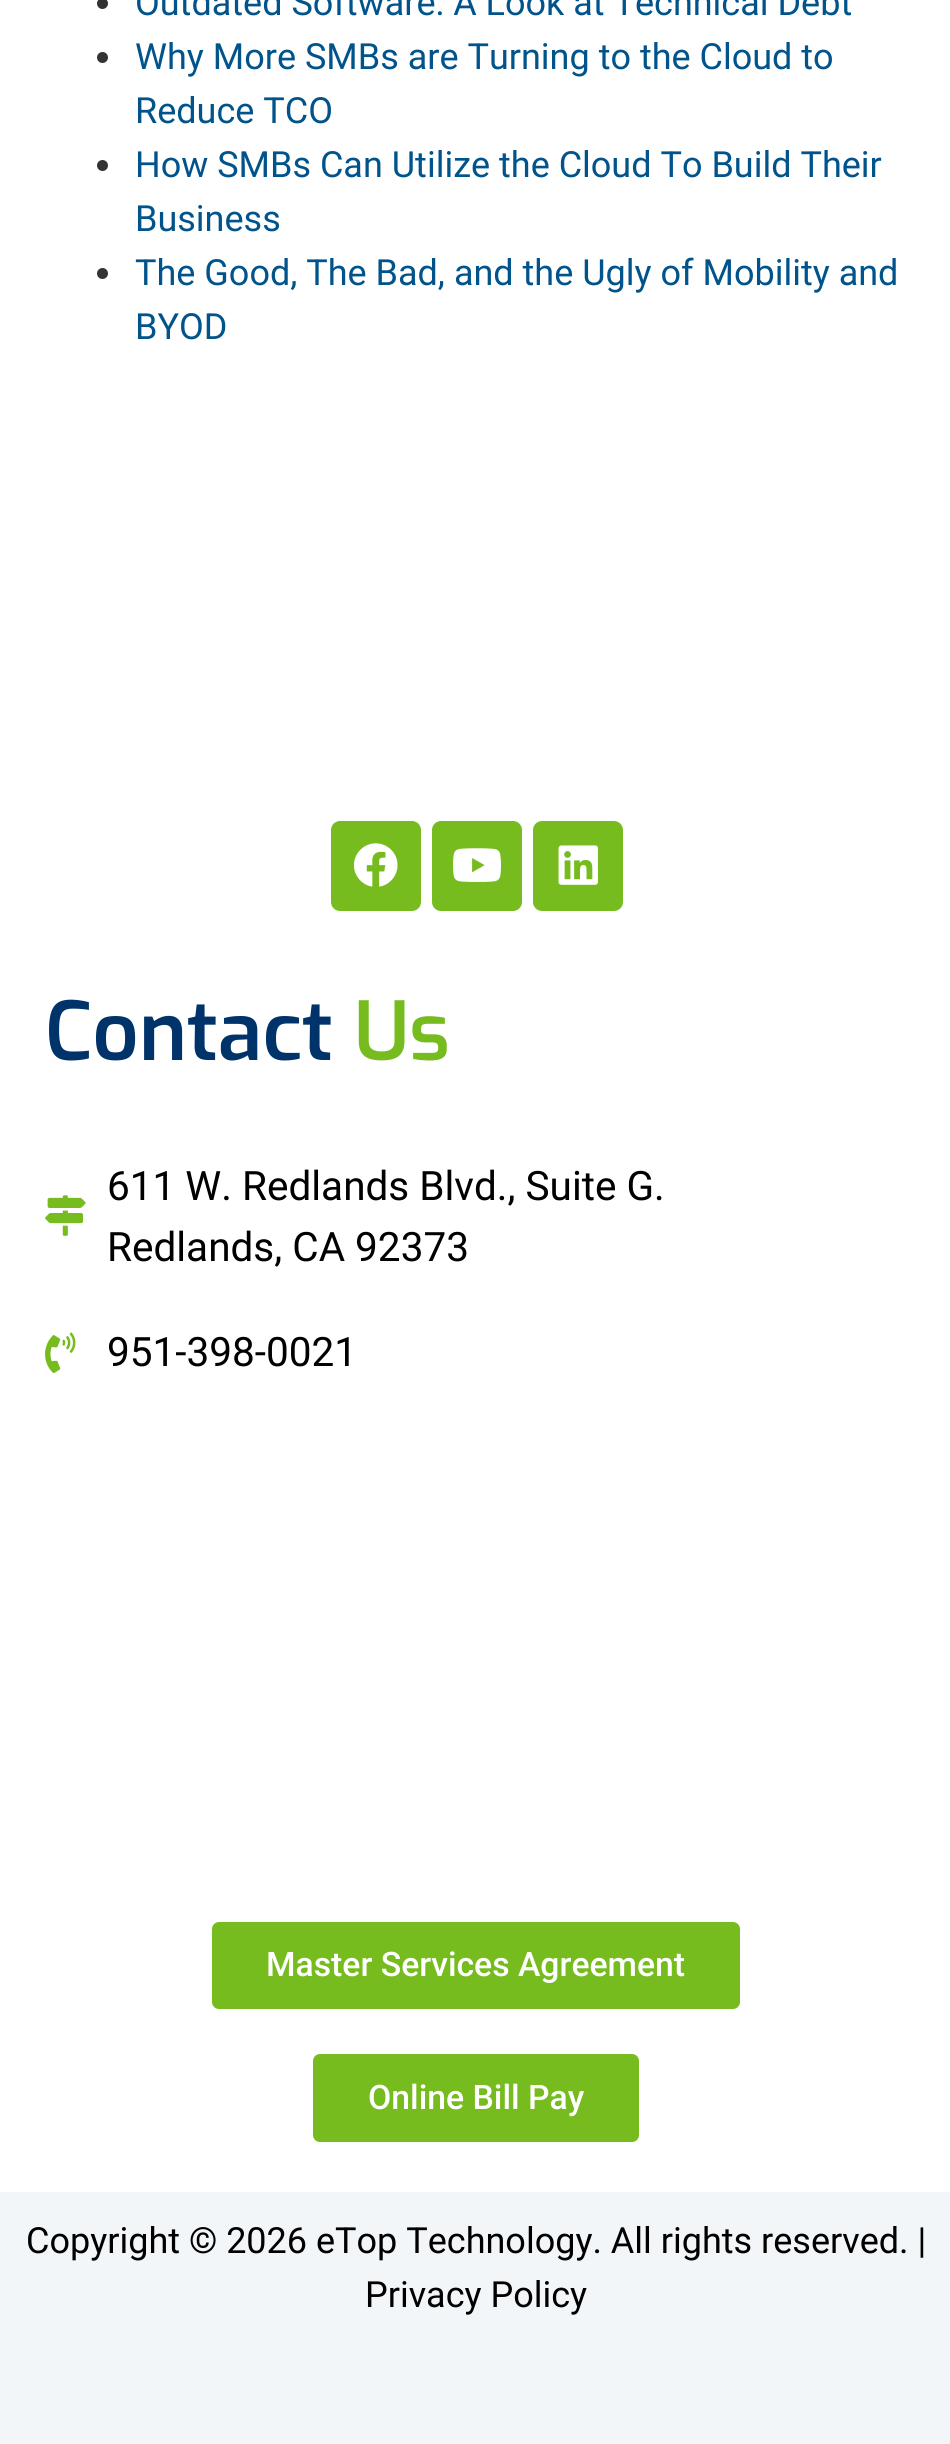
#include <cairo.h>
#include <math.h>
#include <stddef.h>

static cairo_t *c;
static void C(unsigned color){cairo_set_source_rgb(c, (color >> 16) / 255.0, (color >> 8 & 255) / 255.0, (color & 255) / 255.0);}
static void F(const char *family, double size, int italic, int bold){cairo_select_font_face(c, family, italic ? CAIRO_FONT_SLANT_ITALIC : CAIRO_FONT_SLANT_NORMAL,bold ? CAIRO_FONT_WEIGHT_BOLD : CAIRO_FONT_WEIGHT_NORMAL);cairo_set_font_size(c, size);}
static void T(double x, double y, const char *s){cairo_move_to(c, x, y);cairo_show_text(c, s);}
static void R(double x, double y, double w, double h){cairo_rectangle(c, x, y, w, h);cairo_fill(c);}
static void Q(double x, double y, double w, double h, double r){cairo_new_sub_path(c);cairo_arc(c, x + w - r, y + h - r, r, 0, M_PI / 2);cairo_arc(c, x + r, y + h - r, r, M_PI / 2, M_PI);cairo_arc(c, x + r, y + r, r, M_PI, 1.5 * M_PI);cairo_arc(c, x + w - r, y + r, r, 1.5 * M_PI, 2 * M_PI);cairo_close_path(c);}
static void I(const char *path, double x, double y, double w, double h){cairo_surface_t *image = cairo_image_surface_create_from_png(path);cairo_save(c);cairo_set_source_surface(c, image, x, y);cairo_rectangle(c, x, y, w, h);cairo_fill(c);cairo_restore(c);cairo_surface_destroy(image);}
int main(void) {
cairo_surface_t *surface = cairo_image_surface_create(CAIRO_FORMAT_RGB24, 950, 2444);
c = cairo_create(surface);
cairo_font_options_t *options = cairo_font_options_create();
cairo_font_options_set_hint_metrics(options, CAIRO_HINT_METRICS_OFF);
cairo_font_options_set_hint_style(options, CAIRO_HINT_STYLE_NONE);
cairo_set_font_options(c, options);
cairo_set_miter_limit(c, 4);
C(0xffffff);
cairo_paint(c);
C(0x333333);
cairo_arc(c,102.5,3.5,5.5,0,2 * M_PI);
cairo_fill(c);
F("Roboto",36,0,0);
C(0x00548b);
T(135,15,"Outdated Software: A Look at Technical Debt");
C(0x333333);
cairo_new_path(c);
cairo_arc(c,102.5,57.5,5.5,0,2 * M_PI);
cairo_fill(c);
C(0x00548b);
T(135,69,"Why More SMBs are Turning to the Cloud to");
T(135,123,"Reduce TCO");
C(0x333333);
cairo_new_path(c);
cairo_arc(c,102.5,165.5,5.5,0,2 * M_PI);
cairo_fill(c);
C(0x00548b);
T(135,177,"How SMBs Can Utilize the Cloud To Build Their");
T(135,231,"Business");
C(0x333333);
cairo_new_path(c);
cairo_arc(c,102.5,273.5,5.5,0,2 * M_PI);
cairo_fill(c);
C(0x00548b);
T(135,285,"The Good, The Bad, and the Ugly of Mobility and");
T(135,339,"BYOD");
C(0x77bc1f);
Q(331,821,90,90,9);
cairo_fill(c);
I("1.png",353,843,45,44);
Q(432,821,90,90,9);
cairo_fill(c);
I("2.png",453,848,48,34);
Q(533,821,90,90,9);
cairo_fill(c);
I("3.png",558,845,40,40);
F("Exo SemiBold",81,0,0);
C(0x00336a);
T(45,1060,"Contact");
C(0x77bc1f);
T(354,1060,"Us");
I("4.png",45,1195,41,41);
F("Roboto",40.5,0,0);
C(0x000000);
T(107,1200,"611 W. Redlands Blvd., Suite G.");
T(107,1261,"Redlands, CA 92373");
I("5.png",45,1332,31,41);
T(107,1366,"951-398-0021");
C(0x77bc1f);
Q(212,1922,528,87,7);
cairo_fill(c);
F("Roboto Medium",33.75,0,0);
C(0xffffff);
T(266,1976,"Master Services Agreement");
C(0x77bc1f);
Q(313,2054,326,88,7);
cairo_fill(c);
C(0xffffff);
T(368,2109,"Online Bill Pay");
C(0xf2f6f9);
R(0,2192,950,252);
F("Roboto",36,0,0);
C(0x000000);
T(26,2253,"Copyright © 2026 eTop Technology. All rights reserved. |");
T(365,2307,"Privacy Policy");
cairo_surface_write_to_png(surface, "o.png");
cairo_font_options_destroy(options);
cairo_destroy(c);
cairo_surface_destroy(surface);
return 0;
}
